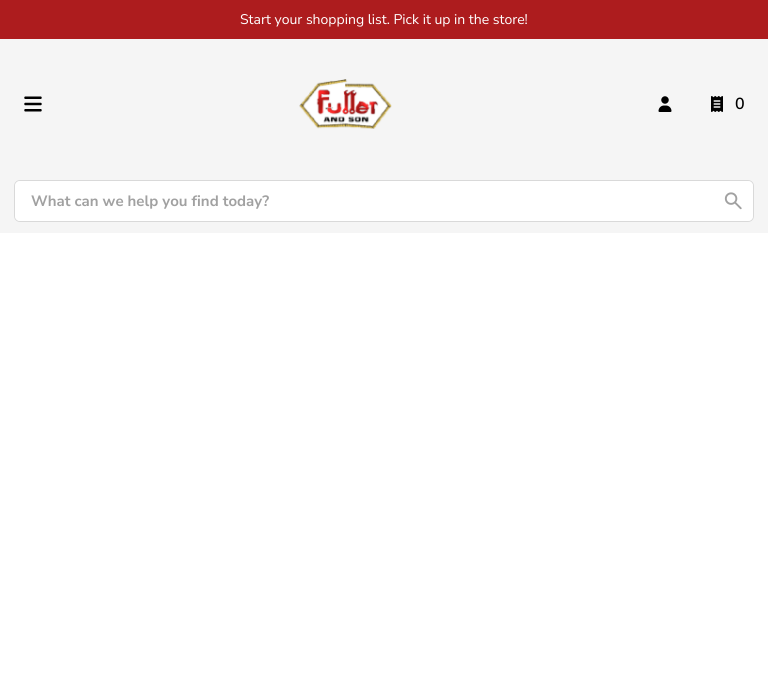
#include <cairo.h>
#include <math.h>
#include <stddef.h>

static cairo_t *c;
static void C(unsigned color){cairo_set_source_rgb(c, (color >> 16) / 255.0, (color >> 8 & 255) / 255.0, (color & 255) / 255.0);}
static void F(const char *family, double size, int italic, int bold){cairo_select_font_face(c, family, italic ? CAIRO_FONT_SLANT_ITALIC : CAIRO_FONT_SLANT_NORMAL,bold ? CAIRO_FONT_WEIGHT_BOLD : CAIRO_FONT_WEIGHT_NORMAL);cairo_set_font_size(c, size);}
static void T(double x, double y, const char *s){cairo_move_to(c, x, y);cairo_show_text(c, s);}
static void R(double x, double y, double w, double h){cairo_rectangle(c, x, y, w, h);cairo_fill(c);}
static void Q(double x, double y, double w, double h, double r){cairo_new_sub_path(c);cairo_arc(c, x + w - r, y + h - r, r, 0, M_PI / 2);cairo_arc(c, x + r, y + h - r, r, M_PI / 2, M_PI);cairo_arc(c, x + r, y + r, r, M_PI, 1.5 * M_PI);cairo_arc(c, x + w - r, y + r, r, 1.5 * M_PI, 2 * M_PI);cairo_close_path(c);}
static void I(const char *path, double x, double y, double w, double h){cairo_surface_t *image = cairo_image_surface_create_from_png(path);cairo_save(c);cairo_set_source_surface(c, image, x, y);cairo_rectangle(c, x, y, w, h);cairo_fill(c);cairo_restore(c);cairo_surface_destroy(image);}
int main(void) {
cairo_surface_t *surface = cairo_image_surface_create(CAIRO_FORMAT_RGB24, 768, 690);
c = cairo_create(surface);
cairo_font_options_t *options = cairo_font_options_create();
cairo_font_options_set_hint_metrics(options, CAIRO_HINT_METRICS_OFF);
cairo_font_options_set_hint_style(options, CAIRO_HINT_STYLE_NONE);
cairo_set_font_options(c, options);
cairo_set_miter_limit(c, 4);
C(0xffffff);
cairo_paint(c);
C(0xad1c1e);
R(0,0,768,39);
F("Nunito Sans",14,0,0);
C(0xffffff);
T(240,24,"Start your shopping list. Pick it up in the store!");
C(0xf5f5f5);
R(0,39,768,194);
I("1.png",24,96,18,16);
I("2.png",299,79,93,50);
I("3.png",658,96,14,16);
I("4.png",711,96,12,16);
F("Nunito Sans SemiBold",16,0,0);
C(0x000000);
T(735,109,"0");
Q(14.5,180.5,739,41,5.5);
C(0xd9d9d9);
cairo_set_line_width(c,1);
cairo_stroke(c);
C(0xffffff);
Q(15,181,738,40,5);
cairo_fill(c);
F("Nunito Sans",15,0,1);
C(0xa1a1a1);
T(31,206,"What can we help you find today?");
I("5.png",724,192,18,18);
cairo_surface_write_to_png(surface, "o.png");
cairo_font_options_destroy(options);
cairo_destroy(c);
cairo_surface_destroy(surface);
return 0;
}
